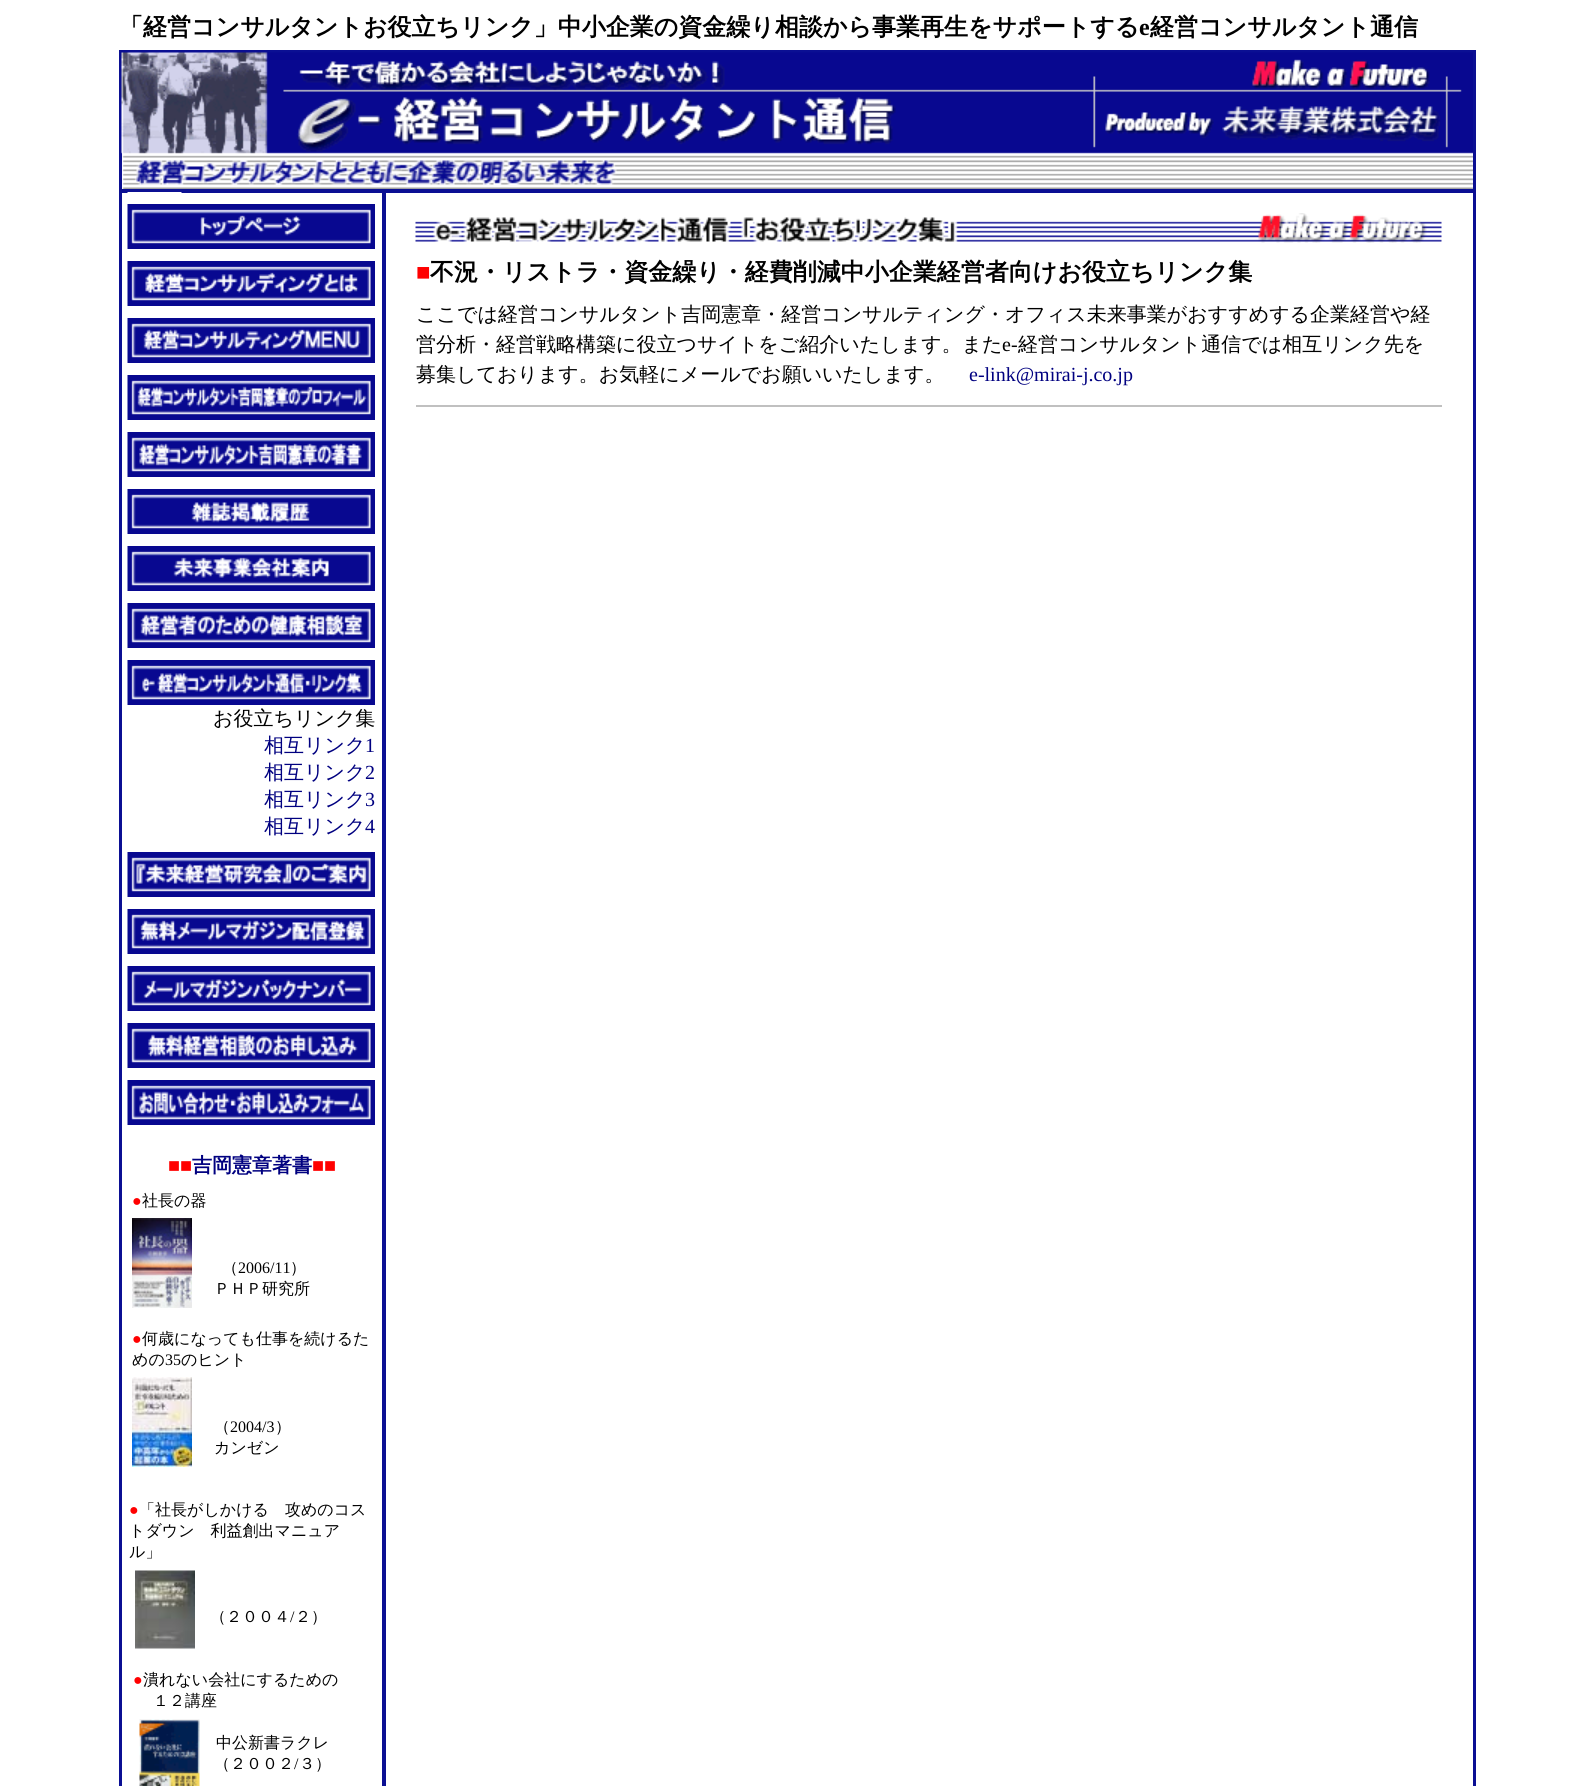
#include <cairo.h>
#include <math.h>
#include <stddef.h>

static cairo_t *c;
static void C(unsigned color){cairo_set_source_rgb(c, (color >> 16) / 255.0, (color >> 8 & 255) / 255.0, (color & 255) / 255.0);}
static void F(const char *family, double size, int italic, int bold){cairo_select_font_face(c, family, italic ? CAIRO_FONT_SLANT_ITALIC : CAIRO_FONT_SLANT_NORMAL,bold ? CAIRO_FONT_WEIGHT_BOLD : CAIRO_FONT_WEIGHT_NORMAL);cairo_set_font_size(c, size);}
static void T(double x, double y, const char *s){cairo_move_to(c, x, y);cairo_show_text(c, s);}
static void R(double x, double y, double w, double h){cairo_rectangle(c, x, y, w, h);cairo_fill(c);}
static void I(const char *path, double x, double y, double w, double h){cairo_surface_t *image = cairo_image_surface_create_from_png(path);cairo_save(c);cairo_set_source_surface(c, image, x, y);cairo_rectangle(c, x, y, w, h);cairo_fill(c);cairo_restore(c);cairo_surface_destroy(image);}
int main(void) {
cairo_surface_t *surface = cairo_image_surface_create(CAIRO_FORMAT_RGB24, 1594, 1786);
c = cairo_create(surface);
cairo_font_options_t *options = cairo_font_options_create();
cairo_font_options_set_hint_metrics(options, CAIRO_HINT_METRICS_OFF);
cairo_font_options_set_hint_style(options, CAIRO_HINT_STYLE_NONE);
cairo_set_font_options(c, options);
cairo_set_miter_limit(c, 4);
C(0xffffff);
cairo_paint(c);
F("WenQuanYi Zen Hei",24,0,1);
C(0x000000);
T(119,35,"「経営コンサルタントお役立ちリンク」中小企業の資金繰り相談から事業再生をサポートする");
F("Liberation Serif",24,0,1);
T(1139,35,"e");
F("WenQuanYi Zen Hei",24,0,1);
T(1150,35,"経営コンサルタント通信");
cairo_rectangle(c,120,51,1355,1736);
C(0x0b0f93);
cairo_stroke(c);
cairo_rectangle(c,121,52,1353,138);
cairo_stroke(c);
I("1.png",121,52,1352,137);
cairo_rectangle(c,385,192,1089,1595);
cairo_stroke(c);
I("2.png",415,213,1027,30);
F("Liberation Serif",24,0,1);
C(0xff0000);
T(416,280,"■");
F("WenQuanYi Zen Hei",24,0,1);
C(0x000000);
T(430,280,"不況・リストラ・資金繰り・経費削減中小企業経営者向けお役立ちリンク集");
F("WenQuanYi Zen Hei Medium",20,0,0);
T(416,321,"ここでは経営コンサルタント吉岡憲章・経営コンサルティング・オフィス未来事業がおすすめする企業経営や経");
T(416,351,"営分析・経営戦略構築に役立つサイトをご紹介いたします。また");
F("Liberation Serif",20,0,0);
T(1002,351,"e-");
F("WenQuanYi Zen Hei Medium",20,0,0);
T(1018,351,"経営コンサルタント通信では相互リンク先を");
T(416,381,"募集しております。お気軽にメールでお願いいたします。");
F("Liberation Serif",20,0,0);
C(0x000080);
T(969,381,"e-link@mirai-j.co.jp");
C(0xc0c0c0);
R(416,405,1026,2);
cairo_rectangle(c,121,192,262,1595);
C(0x0b0f93);
cairo_stroke(c);
I("3.png",127,192,55,1);
I("4.png",127,204,248,45);
I("5.png",127,261,248,45);
I("6.png",127,318,248,45);
I("7.png",127,375,248,45);
I("8.png",127,432,248,45);
I("9.png",127,489,248,45);
I("10.png",127,546,248,45);
I("11.png",127,603,248,45);
I("12.png",127,660,248,45);
F("WenQuanYi Zen Hei Medium",20,0,0);
C(0x000000);
T(213,725,"お役立ちリンク集");
C(0x000080);
T(264,752,"相互リンク");
F("Liberation Serif",20,0,0);
T(365,752,"1");
F("WenQuanYi Zen Hei Medium",20,0,0);
T(264,779,"相互リンク");
F("Liberation Serif",20,0,0);
T(365,779,"2");
F("WenQuanYi Zen Hei Medium",20,0,0);
T(264,806,"相互リンク");
F("Liberation Serif",20,0,0);
T(365,806,"3");
F("WenQuanYi Zen Hei Medium",20,0,0);
T(264,833,"相互リンク");
F("Liberation Serif",20,0,0);
T(365,833,"4");
I("13.png",127,852,248,45);
I("14.png",127,909,248,45);
I("15.png",127,966,248,45);
I("16.png",127,1023,248,45);
I("17.png",127,1080,248,45);
F("Liberation Serif",20,0,1);
C(0xff0000);
T(168,1172,"■■");
F("WenQuanYi Zen Hei",20,0,1);
C(0x000080);
T(192,1172,"吉岡憲章著書");
F("Liberation Serif",20,0,1);
C(0xff0000);
T(312,1172,"■■");
F("Liberation Serif",16,0,0);
T(132,1206,"●");
F("WenQuanYi Zen Hei Medium",16,0,0);
C(0x000000);
T(142,1206,"社長の器");
I("18.png",132,1218,60,90);
T(222,1273,"（");
F("Liberation Serif",16,0,0);
T(238,1273,"2006/11");
F("WenQuanYi Zen Hei Medium",16,0,0);
T(290,1273,"）");
T(214,1294,"ＰＨＰ研究所");
F("Liberation Serif",16,0,0);
C(0xff0000);
T(132,1344,"●");
F("WenQuanYi Zen Hei Medium",16,0,0);
C(0x000000);
T(142,1344,"何歳になっても仕事を続けるた");
T(132,1365,"めの");
F("Liberation Serif",16,0,0);
T(165,1365,"35");
F("WenQuanYi Zen Hei Medium",16,0,0);
T(181,1365,"のヒント");
I("19.png",132,1377,60,90);
T(214,1432,"（");
F("Liberation Serif",16,0,0);
T(230,1432,"2004/3");
F("WenQuanYi Zen Hei Medium",16,0,0);
T(275,1432,"）");
T(214,1453,"カンゼン");
F("Liberation Serif",16,0,0);
C(0xff0000);
T(129,1515,"●");
F("WenQuanYi Zen Hei Medium",16,0,0);
C(0x000000);
T(139,1515,"「社長がしかける　攻めのコス");
T(129,1536,"トダウン　利益創出マニュア");
T(129,1557,"ル」");
I("20.png",135,1570,60,79);
T(210,1622,"（２００４");
F("Liberation Serif",16,0,0);
T(290,1622,"/");
F("WenQuanYi Zen Hei Medium",16,0,0);
T(295,1622,"２）");
F("Liberation Serif",16,0,0);
C(0xff0000);
T(133,1685,"●");
F("WenQuanYi Zen Hei Medium",16,0,0);
C(0x000000);
T(143,1685,"潰れない会社にするための");
T(153,1706,"１２講座");
I("21.png",139,1719,61,67);
T(216,1748,"中公新書ラクレ");
T(214,1769,"（２００２");
F("Liberation Serif",16,0,0);
T(294,1769,"/");
F("WenQuanYi Zen Hei Medium",16,0,0);
T(299,1769,"３）");
cairo_surface_write_to_png(surface, "o.png");
cairo_font_options_destroy(options);
cairo_destroy(c);
cairo_surface_destroy(surface);
return 0;
}
